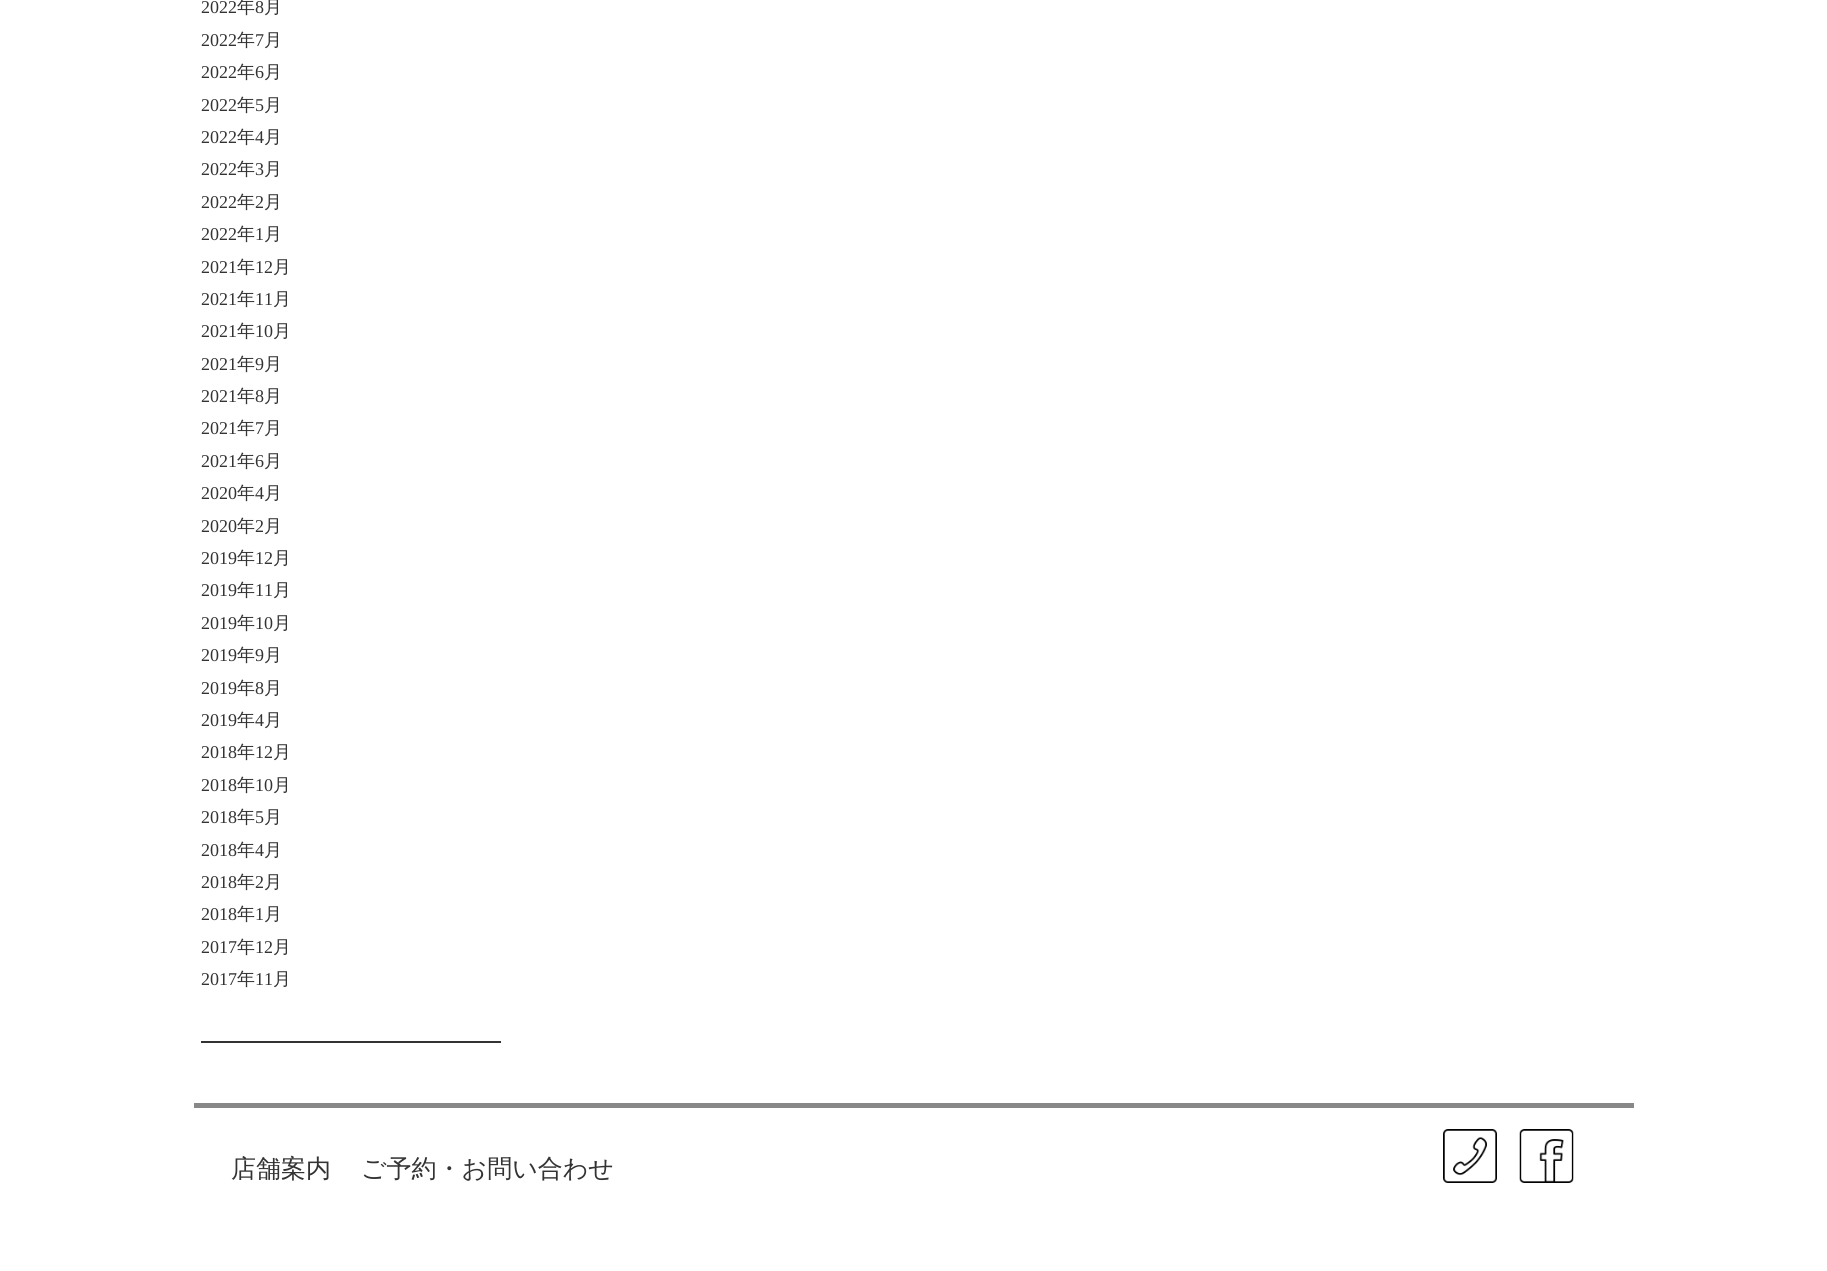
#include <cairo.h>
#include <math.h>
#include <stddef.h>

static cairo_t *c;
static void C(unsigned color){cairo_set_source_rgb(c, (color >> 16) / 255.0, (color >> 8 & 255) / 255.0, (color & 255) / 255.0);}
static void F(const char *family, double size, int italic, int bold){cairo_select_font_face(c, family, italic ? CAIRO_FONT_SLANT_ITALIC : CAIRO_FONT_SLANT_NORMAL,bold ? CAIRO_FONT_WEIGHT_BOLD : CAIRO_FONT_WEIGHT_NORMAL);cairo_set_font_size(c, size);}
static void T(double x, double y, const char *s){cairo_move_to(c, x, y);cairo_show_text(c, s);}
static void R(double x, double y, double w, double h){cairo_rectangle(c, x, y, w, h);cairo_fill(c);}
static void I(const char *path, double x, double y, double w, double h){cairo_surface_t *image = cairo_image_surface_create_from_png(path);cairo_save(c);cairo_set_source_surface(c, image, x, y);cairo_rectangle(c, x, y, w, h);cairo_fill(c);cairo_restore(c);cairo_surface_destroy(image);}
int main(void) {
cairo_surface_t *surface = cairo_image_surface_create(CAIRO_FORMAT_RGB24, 1827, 1271);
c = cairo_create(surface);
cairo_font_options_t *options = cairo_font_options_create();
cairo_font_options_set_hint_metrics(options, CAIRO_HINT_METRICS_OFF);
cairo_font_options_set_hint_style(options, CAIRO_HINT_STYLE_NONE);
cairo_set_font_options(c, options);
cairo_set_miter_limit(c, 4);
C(0xffffff);
cairo_paint(c);
C(0x333333);
R(201,1041,300,2);
F("Liberation Serif",18,0,0);
T(201,13,"2022");
F("WenQuanYi Zen Hei Medium",18,0,0);
T(237,13,"年");
F("Liberation Serif",18,0,0);
T(255,13,"8");
F("WenQuanYi Zen Hei Medium",18,0,0);
T(264,13,"月");
F("Liberation Serif",18,0,0);
T(201,46,"2022");
F("WenQuanYi Zen Hei Medium",18,0,0);
T(237,46,"年");
F("Liberation Serif",18,0,0);
T(255,46,"7");
F("WenQuanYi Zen Hei Medium",18,0,0);
T(264,46,"月");
F("Liberation Serif",18,0,0);
T(201,78,"2022");
F("WenQuanYi Zen Hei Medium",18,0,0);
T(237,78,"年");
F("Liberation Serif",18,0,0);
T(255,78,"6");
F("WenQuanYi Zen Hei Medium",18,0,0);
T(264,78,"月");
F("Liberation Serif",18,0,0);
T(201,111,"2022");
F("WenQuanYi Zen Hei Medium",18,0,0);
T(237,111,"年");
F("Liberation Serif",18,0,0);
T(255,111,"5");
F("WenQuanYi Zen Hei Medium",18,0,0);
T(264,111,"月");
F("Liberation Serif",18,0,0);
T(201,143,"2022");
F("WenQuanYi Zen Hei Medium",18,0,0);
T(237,143,"年");
F("Liberation Serif",18,0,0);
T(255,143,"4");
F("WenQuanYi Zen Hei Medium",18,0,0);
T(264,143,"月");
F("Liberation Serif",18,0,0);
T(201,175,"2022");
F("WenQuanYi Zen Hei Medium",18,0,0);
T(237,175,"年");
F("Liberation Serif",18,0,0);
T(255,175,"3");
F("WenQuanYi Zen Hei Medium",18,0,0);
T(264,175,"月");
F("Liberation Serif",18,0,0);
T(201,208,"2022");
F("WenQuanYi Zen Hei Medium",18,0,0);
T(237,208,"年");
F("Liberation Serif",18,0,0);
T(255,208,"2");
F("WenQuanYi Zen Hei Medium",18,0,0);
T(264,208,"月");
F("Liberation Serif",18,0,0);
T(201,240,"2022");
F("WenQuanYi Zen Hei Medium",18,0,0);
T(237,240,"年");
F("Liberation Serif",18,0,0);
T(255,240,"1");
F("WenQuanYi Zen Hei Medium",18,0,0);
T(264,240,"月");
F("Liberation Serif",18,0,0);
T(201,273,"2021");
F("WenQuanYi Zen Hei Medium",18,0,0);
T(237,273,"年");
F("Liberation Serif",18,0,0);
T(255,273,"12");
F("WenQuanYi Zen Hei Medium",18,0,0);
T(273,273,"月");
F("Liberation Serif",18,0,0);
T(201,305,"2021");
F("WenQuanYi Zen Hei Medium",18,0,0);
T(237,305,"年");
F("Liberation Serif",18,0,0);
T(255,305,"11");
F("WenQuanYi Zen Hei Medium",18,0,0);
T(273,305,"月");
F("Liberation Serif",18,0,0);
T(201,337,"2021");
F("WenQuanYi Zen Hei Medium",18,0,0);
T(237,337,"年");
F("Liberation Serif",18,0,0);
T(255,337,"10");
F("WenQuanYi Zen Hei Medium",18,0,0);
T(273,337,"月");
F("Liberation Serif",18,0,0);
T(201,370,"2021");
F("WenQuanYi Zen Hei Medium",18,0,0);
T(237,370,"年");
F("Liberation Serif",18,0,0);
T(255,370,"9");
F("WenQuanYi Zen Hei Medium",18,0,0);
T(264,370,"月");
F("Liberation Serif",18,0,0);
T(201,402,"2021");
F("WenQuanYi Zen Hei Medium",18,0,0);
T(237,402,"年");
F("Liberation Serif",18,0,0);
T(255,402,"8");
F("WenQuanYi Zen Hei Medium",18,0,0);
T(264,402,"月");
F("Liberation Serif",18,0,0);
T(201,434,"2021");
F("WenQuanYi Zen Hei Medium",18,0,0);
T(237,434,"年");
F("Liberation Serif",18,0,0);
T(255,434,"7");
F("WenQuanYi Zen Hei Medium",18,0,0);
T(264,434,"月");
F("Liberation Serif",18,0,0);
T(201,467,"2021");
F("WenQuanYi Zen Hei Medium",18,0,0);
T(237,467,"年");
F("Liberation Serif",18,0,0);
T(255,467,"6");
F("WenQuanYi Zen Hei Medium",18,0,0);
T(264,467,"月");
F("Liberation Serif",18,0,0);
T(201,499,"2020");
F("WenQuanYi Zen Hei Medium",18,0,0);
T(237,499,"年");
F("Liberation Serif",18,0,0);
T(255,499,"4");
F("WenQuanYi Zen Hei Medium",18,0,0);
T(264,499,"月");
F("Liberation Serif",18,0,0);
T(201,532,"2020");
F("WenQuanYi Zen Hei Medium",18,0,0);
T(237,532,"年");
F("Liberation Serif",18,0,0);
T(255,532,"2");
F("WenQuanYi Zen Hei Medium",18,0,0);
T(264,532,"月");
F("Liberation Serif",18,0,0);
T(201,564,"2019");
F("WenQuanYi Zen Hei Medium",18,0,0);
T(237,564,"年");
F("Liberation Serif",18,0,0);
T(255,564,"12");
F("WenQuanYi Zen Hei Medium",18,0,0);
T(273,564,"月");
F("Liberation Serif",18,0,0);
T(201,596,"2019");
F("WenQuanYi Zen Hei Medium",18,0,0);
T(237,596,"年");
F("Liberation Serif",18,0,0);
T(255,596,"11");
F("WenQuanYi Zen Hei Medium",18,0,0);
T(273,596,"月");
F("Liberation Serif",18,0,0);
T(201,629,"2019");
F("WenQuanYi Zen Hei Medium",18,0,0);
T(237,629,"年");
F("Liberation Serif",18,0,0);
T(255,629,"10");
F("WenQuanYi Zen Hei Medium",18,0,0);
T(273,629,"月");
F("Liberation Serif",18,0,0);
T(201,661,"2019");
F("WenQuanYi Zen Hei Medium",18,0,0);
T(237,661,"年");
F("Liberation Serif",18,0,0);
T(255,661,"9");
F("WenQuanYi Zen Hei Medium",18,0,0);
T(264,661,"月");
F("Liberation Serif",18,0,0);
T(201,694,"2019");
F("WenQuanYi Zen Hei Medium",18,0,0);
T(237,694,"年");
F("Liberation Serif",18,0,0);
T(255,694,"8");
F("WenQuanYi Zen Hei Medium",18,0,0);
T(264,694,"月");
F("Liberation Serif",18,0,0);
T(201,726,"2019");
F("WenQuanYi Zen Hei Medium",18,0,0);
T(237,726,"年");
F("Liberation Serif",18,0,0);
T(255,726,"4");
F("WenQuanYi Zen Hei Medium",18,0,0);
T(264,726,"月");
F("Liberation Serif",18,0,0);
T(201,758,"2018");
F("WenQuanYi Zen Hei Medium",18,0,0);
T(237,758,"年");
F("Liberation Serif",18,0,0);
T(255,758,"12");
F("WenQuanYi Zen Hei Medium",18,0,0);
T(273,758,"月");
F("Liberation Serif",18,0,0);
T(201,791,"2018");
F("WenQuanYi Zen Hei Medium",18,0,0);
T(237,791,"年");
F("Liberation Serif",18,0,0);
T(255,791,"10");
F("WenQuanYi Zen Hei Medium",18,0,0);
T(273,791,"月");
F("Liberation Serif",18,0,0);
T(201,823,"2018");
F("WenQuanYi Zen Hei Medium",18,0,0);
T(237,823,"年");
F("Liberation Serif",18,0,0);
T(255,823,"5");
F("WenQuanYi Zen Hei Medium",18,0,0);
T(264,823,"月");
F("Liberation Serif",18,0,0);
T(201,856,"2018");
F("WenQuanYi Zen Hei Medium",18,0,0);
T(237,856,"年");
F("Liberation Serif",18,0,0);
T(255,856,"4");
F("WenQuanYi Zen Hei Medium",18,0,0);
T(264,856,"月");
F("Liberation Serif",18,0,0);
T(201,888,"2018");
F("WenQuanYi Zen Hei Medium",18,0,0);
T(237,888,"年");
F("Liberation Serif",18,0,0);
T(255,888,"2");
F("WenQuanYi Zen Hei Medium",18,0,0);
T(264,888,"月");
F("Liberation Serif",18,0,0);
T(201,920,"2018");
F("WenQuanYi Zen Hei Medium",18,0,0);
T(237,920,"年");
F("Liberation Serif",18,0,0);
T(255,920,"1");
F("WenQuanYi Zen Hei Medium",18,0,0);
T(264,920,"月");
F("Liberation Serif",18,0,0);
T(201,953,"2017");
F("WenQuanYi Zen Hei Medium",18,0,0);
T(237,953,"年");
F("Liberation Serif",18,0,0);
T(255,953,"12");
F("WenQuanYi Zen Hei Medium",18,0,0);
T(273,953,"月");
F("Liberation Serif",18,0,0);
T(201,985,"2017");
F("WenQuanYi Zen Hei Medium",18,0,0);
T(237,985,"年");
F("Liberation Serif",18,0,0);
T(255,985,"11");
F("WenQuanYi Zen Hei Medium",18,0,0);
T(273,985,"月");
C(0x888888);
R(194,1103,1440,5);
F("WenQuanYi Zen Hei Medium",25,0,0);
C(0x333333);
T(231,1177,"店舗案内");
T(361,1177,"ご予約・お問い合わせ");
I("1.png",1443,1129,54,54);
I("2.png",1519,1129,55,54);
cairo_surface_write_to_png(surface, "o.png");
cairo_font_options_destroy(options);
cairo_destroy(c);
cairo_surface_destroy(surface);
return 0;
}
